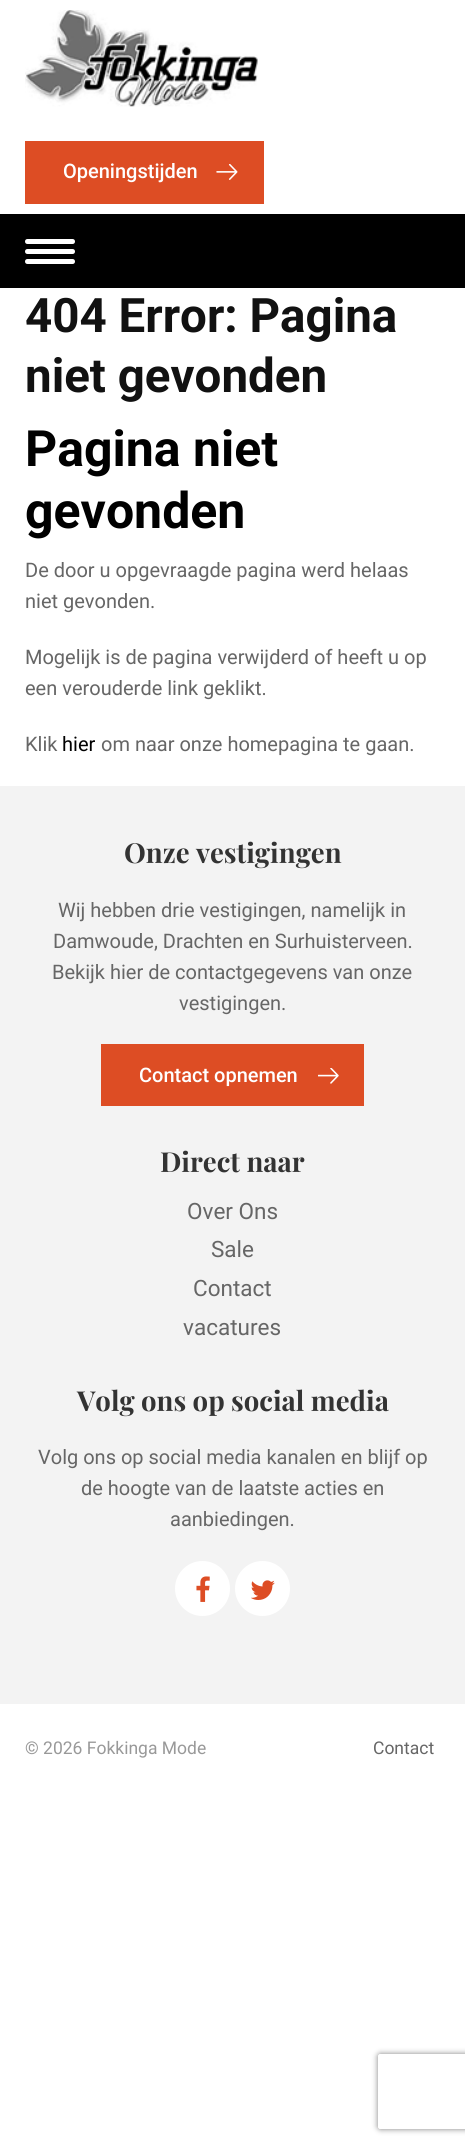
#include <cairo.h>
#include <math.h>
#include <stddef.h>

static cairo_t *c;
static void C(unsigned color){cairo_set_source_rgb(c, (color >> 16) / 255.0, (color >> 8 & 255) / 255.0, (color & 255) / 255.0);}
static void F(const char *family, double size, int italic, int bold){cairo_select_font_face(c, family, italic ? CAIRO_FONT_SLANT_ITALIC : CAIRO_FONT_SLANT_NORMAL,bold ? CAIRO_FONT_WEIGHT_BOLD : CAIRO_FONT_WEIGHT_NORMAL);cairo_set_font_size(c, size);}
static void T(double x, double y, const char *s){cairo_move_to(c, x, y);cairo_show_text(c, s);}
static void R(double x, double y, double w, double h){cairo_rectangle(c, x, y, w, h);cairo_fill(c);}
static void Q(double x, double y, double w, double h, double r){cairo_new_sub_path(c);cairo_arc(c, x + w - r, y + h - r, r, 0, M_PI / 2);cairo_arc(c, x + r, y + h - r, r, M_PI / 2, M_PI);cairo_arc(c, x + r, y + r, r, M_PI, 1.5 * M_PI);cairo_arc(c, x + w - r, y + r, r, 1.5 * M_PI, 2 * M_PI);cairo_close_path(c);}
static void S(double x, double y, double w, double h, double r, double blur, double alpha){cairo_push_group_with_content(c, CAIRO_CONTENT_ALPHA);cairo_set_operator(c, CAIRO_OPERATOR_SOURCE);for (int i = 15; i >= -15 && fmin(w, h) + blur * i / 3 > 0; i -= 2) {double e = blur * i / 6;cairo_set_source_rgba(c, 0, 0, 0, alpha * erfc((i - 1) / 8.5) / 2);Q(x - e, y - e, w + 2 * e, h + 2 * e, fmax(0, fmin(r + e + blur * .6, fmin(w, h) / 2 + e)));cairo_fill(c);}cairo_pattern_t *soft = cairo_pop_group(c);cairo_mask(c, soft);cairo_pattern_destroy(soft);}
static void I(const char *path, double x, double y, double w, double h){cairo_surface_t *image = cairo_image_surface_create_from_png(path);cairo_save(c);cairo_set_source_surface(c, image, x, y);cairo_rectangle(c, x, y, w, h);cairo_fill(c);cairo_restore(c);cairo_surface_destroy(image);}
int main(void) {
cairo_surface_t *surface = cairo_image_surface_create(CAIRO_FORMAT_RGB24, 465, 2146);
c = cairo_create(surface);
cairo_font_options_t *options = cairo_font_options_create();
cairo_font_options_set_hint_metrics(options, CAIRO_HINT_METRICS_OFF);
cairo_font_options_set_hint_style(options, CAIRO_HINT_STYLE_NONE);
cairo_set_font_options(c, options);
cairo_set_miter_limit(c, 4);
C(0xffffff);
cairo_paint(c);
I("1.png",25,10,233,97);
C(0xdd4d24);
R(25,141,239,63);
F("Roboto Medium",20,0,0);
C(0xffffff);
T(63,178,"Openingstijden");
I("2.png",216,164,22,16);
C(0x000000);
R(0,214,465,74);
C(0xffffff);
cairo_new_path(c);
cairo_move_to(c,27.5,239);
cairo_line_to(c,50,239);
cairo_line_to(c,50,244);
cairo_line_to(c,27.5,244);
cairo_curve_to(c,26,244,25,243,25,241.5);
cairo_curve_to(c,25,240,26,239,27.5,239);
cairo_close_path(c);
cairo_fill(c);
cairo_new_path(c);
cairo_move_to(c,50,239);
cairo_line_to(c,72.5,239);
cairo_curve_to(c,74,239,75,240,75,241.5);
cairo_curve_to(c,75,243,74,244,72.5,244);
cairo_line_to(c,50,244);
cairo_close_path(c);
cairo_fill(c);
cairo_new_path(c);
cairo_move_to(c,27.5,249);
cairo_line_to(c,50,249);
cairo_line_to(c,50,254);
cairo_line_to(c,27.5,254);
cairo_curve_to(c,26,254,25,253,25,251.5);
cairo_curve_to(c,25,250,26,249,27.5,249);
cairo_close_path(c);
cairo_fill(c);
cairo_new_path(c);
cairo_move_to(c,50,249);
cairo_line_to(c,72.5,249);
cairo_curve_to(c,74,249,75,250,75,251.5);
cairo_curve_to(c,75,253,74,254,72.5,254);
cairo_line_to(c,50,254);
cairo_close_path(c);
cairo_fill(c);
cairo_new_path(c);
cairo_move_to(c,27.5,259);
cairo_line_to(c,50,259);
cairo_line_to(c,50,264);
cairo_line_to(c,27.5,264);
cairo_curve_to(c,26,264,25,263,25,261.5);
cairo_curve_to(c,25,260,26,259,27.5,259);
cairo_close_path(c);
cairo_fill(c);
cairo_new_path(c);
cairo_move_to(c,50,259);
cairo_line_to(c,72.5,259);
cairo_curve_to(c,74,259,75,260,75,261.5);
cairo_curve_to(c,75,263,74,264,72.5,264);
cairo_line_to(c,50,264);
cairo_close_path(c);
cairo_fill(c);
F("Roboto",47.5,0,1);
C(0x111111);
T(25,332,"404 Error: Pagina");
T(25,392,"niet gevonden");
F("Roboto",50,0,1);
C(0x000000);
T(25,466,"Pagina niet");
T(25,528,"gevonden");
F("Roboto",20,0,0);
C(0x666666);
T(25,577,"De door u opgevraagde pagina werd helaas");
T(25,608,"niet gevonden.");
T(25,664,"Mogelijk is de pagina verwijderd of heeft u op");
T(25,695,"een verouderde link geklikt.");
T(25,751,"Klik");
C(0x000000);
T(62,751,"hier");
C(0x666666);
T(101,751,"om naar onze homepagina te gaan.");
C(0xf3f3f3);
R(0,786,465,918);
F("Playfair Display",27.5,0,1);
C(0x333333);
T(124,863,"Onze vestigingen");
F("Roboto",20,0,0);
C(0x666666);
T(58,917,"Wij hebben drie vestigingen, namelijk in");
T(53,948,"Damwoude, Drachten en Surhuisterveen.");
T(52,979,"Bekijk hier de contactgegevens van onze");
T(179,1010,"vestigingen.");
C(0xdd4d24);
R(101,1044,263,62);
F("Roboto Medium",20,0,0);
C(0xffffff);
T(139,1082,"Contact opnemen");
I("3.png",318,1068,21,16);
F("Playfair Display",27.5,0,1);
C(0x333333);
T(160,1172,"Direct naar");
F("Roboto",22.5,0,0);
C(0x666666);
T(187,1219,"Over Ons");
T(211,1257,"Sale");
T(193,1296,"Contact");
T(183,1335,"vacatures");
F("Playfair Display",27.5,0,1);
C(0x333333);
T(77,1411,"Volg ons op social media");
F("Roboto",20,0,0);
C(0x666666);
T(38,1464,"Volg ons op social media kanalen en blijf op");
T(81,1495,"de hoogte van de laatste acties en");
T(170,1526,"aanbiedingen.");
C(0xffffff);
cairo_new_path(c);
cairo_arc(c,202.5,1588.5,27.5,0,2 * M_PI);
cairo_fill(c);
I("4.png",196,1576,14,26);
cairo_arc(c,262.5,1588.5,27.5,0,2 * M_PI);
cairo_fill(c);
I("5.png",251,1580,24,20);
F("Roboto",17.5,0,0);
C(0x999999);
T(25,1754,"© 2026 Fokkinga Mode");
C(0x666666);
T(373,1754,"Contact");
cairo_save(c);
cairo_set_fill_rule(c,CAIRO_FILL_RULE_EVEN_ODD);
cairo_new_path(c);
cairo_move_to(c,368,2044);
cairo_line_to(c,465,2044);
cairo_line_to(c,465,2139);
cairo_line_to(c,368,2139);
cairo_close_path(c);
cairo_move_to(c,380.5,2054);
cairo_line_to(c,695.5,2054);
cairo_curve_to(c,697,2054,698,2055,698,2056.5);
cairo_line_to(c,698,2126.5);
cairo_curve_to(c,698,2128,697,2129,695.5,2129);
cairo_line_to(c,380.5,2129);
cairo_curve_to(c,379,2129,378,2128,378,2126.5);
cairo_line_to(c,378,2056.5);
cairo_curve_to(c,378,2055,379,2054,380.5,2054);
cairo_close_path(c);
cairo_clip(c);
C(0x808080);
S(378,2054,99,75,2.5,3,1);
cairo_restore(c);
cairo_surface_write_to_png(surface, "o.png");
cairo_font_options_destroy(options);
cairo_destroy(c);
cairo_surface_destroy(surface);
return 0;
}
